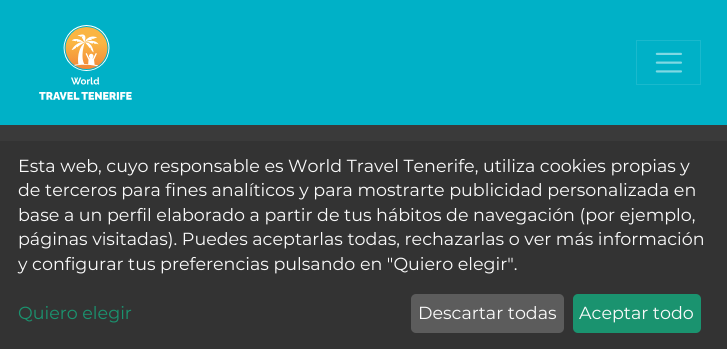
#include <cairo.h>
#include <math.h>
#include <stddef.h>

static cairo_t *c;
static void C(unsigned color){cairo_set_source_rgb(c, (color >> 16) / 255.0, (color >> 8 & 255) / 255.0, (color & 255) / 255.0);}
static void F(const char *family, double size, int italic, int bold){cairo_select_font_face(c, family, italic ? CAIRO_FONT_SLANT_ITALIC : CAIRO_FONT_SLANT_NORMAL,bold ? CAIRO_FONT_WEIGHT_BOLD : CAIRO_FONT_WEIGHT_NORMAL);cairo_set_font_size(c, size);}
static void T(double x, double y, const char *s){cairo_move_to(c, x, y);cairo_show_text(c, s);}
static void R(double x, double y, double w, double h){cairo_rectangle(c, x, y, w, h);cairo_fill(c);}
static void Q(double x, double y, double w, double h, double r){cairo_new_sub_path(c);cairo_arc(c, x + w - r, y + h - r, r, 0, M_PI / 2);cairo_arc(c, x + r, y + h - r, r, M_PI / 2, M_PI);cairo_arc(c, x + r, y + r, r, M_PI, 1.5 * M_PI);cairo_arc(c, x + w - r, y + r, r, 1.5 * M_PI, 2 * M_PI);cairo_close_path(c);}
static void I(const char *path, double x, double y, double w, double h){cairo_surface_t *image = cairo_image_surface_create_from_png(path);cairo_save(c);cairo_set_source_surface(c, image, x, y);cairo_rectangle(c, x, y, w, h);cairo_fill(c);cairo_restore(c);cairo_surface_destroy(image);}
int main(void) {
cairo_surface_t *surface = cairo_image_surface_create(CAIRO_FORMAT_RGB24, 727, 349);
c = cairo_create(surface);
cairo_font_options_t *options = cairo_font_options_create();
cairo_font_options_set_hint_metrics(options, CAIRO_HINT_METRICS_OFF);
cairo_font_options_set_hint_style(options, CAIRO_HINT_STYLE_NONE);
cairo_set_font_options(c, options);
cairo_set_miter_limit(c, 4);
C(0x3a3a3a);
cairo_paint(c);
C(0x00b1c7);
R(0,0,727,125);
I("1.png",39,25,93,75);
cairo_rectangle(c,636.5,40.5,64,44);
C(0x1ab9cd);
cairo_set_line_width(c,1);
cairo_stroke(c);
I("2.png",655,52,27,21);
C(0x333333);
R(0,141,727,208);
F("Montserrat",17.5,0,0);
C(0xfafafa);
T(18,172,"Esta web, cuyo responsable es World Travel Tenerife, utiliza cookies propias y");
T(18,196,"de terceros para fines analíticos y para mostrarte publicidad personalizada en");
T(18,221,"base a un perfil elaborado a partir de tus hábitos de navegación (por ejemplo,");
T(18,245,"páginas visitadas). Puedes aceptarlas todas, rechazarlas o ver más información");
T(18,270,"y configurar tus preferencias pulsando en \"Quiero elegir\".");
C(0x1a936f);
T(18,319,"Quiero elegir");
C(0x5c5c5c);
Q(411,294,153,39,5);
cairo_fill(c);
C(0xfafafa);
T(418,319,"Descartar todas");
C(0x1a936f);
Q(573,294,128,39,5);
cairo_fill(c);
C(0xfafafa);
T(579,319,"Aceptar todo");
cairo_surface_write_to_png(surface, "o.png");
cairo_font_options_destroy(options);
cairo_destroy(c);
cairo_surface_destroy(surface);
return 0;
}
